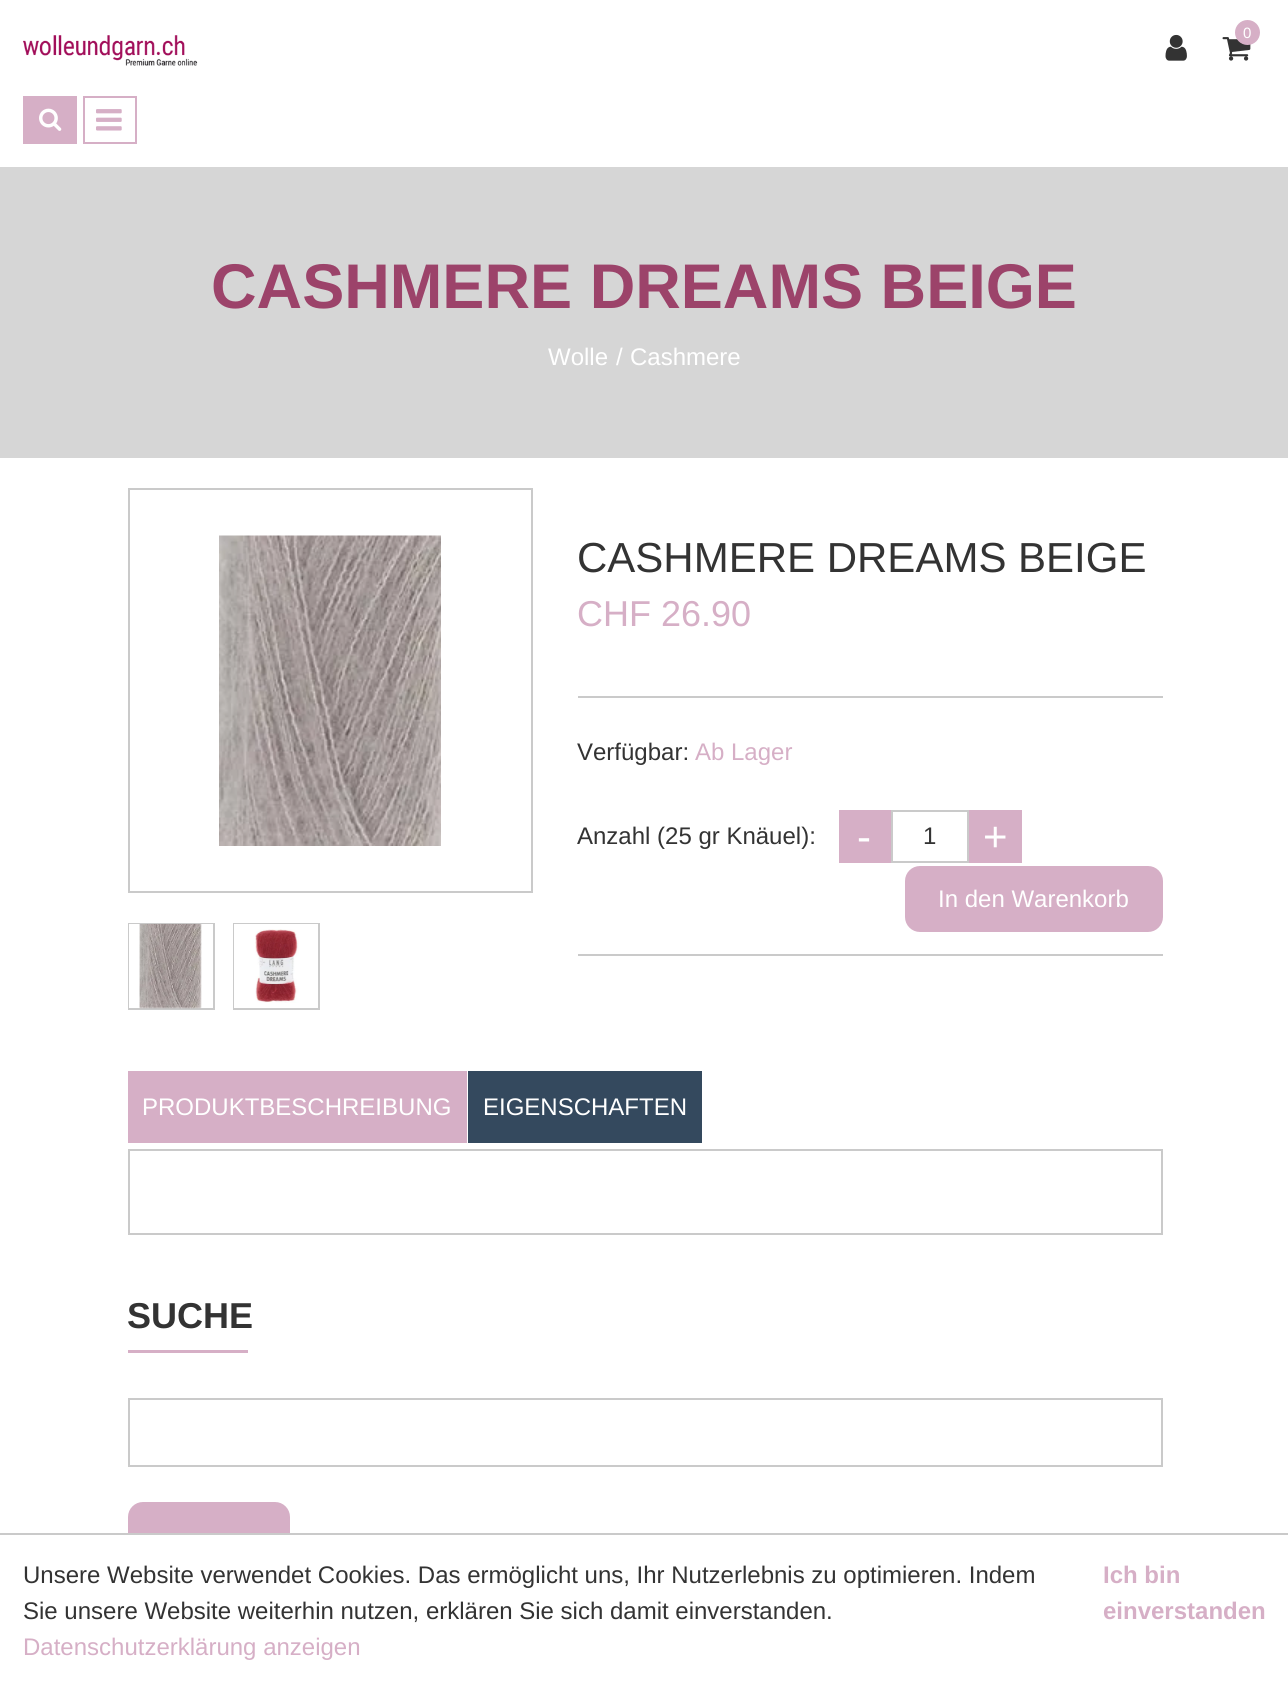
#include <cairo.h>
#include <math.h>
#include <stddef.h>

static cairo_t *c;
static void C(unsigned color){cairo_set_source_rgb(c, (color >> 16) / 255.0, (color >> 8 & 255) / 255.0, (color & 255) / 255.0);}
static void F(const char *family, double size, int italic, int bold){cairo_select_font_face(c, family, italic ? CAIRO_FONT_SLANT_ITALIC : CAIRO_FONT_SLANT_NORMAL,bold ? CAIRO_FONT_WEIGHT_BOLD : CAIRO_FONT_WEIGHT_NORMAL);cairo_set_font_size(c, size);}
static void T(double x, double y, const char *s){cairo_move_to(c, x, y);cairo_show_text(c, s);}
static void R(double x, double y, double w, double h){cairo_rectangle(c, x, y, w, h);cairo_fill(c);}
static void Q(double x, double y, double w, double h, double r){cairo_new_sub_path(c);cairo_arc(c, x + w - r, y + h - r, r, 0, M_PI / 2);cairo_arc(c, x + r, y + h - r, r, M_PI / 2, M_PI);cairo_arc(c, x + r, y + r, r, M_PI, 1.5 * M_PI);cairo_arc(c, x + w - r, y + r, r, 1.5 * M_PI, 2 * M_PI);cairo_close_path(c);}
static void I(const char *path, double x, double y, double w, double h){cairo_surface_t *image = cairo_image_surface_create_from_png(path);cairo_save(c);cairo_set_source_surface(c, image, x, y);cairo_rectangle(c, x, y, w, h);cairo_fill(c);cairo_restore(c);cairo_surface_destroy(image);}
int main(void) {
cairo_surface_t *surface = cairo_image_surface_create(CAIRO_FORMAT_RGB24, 1288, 1687);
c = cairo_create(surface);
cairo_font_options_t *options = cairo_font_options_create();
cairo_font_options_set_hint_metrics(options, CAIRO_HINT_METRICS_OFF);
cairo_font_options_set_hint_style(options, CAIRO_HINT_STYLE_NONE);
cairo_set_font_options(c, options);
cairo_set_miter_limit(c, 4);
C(0xffffff);
cairo_paint(c);
I("1.png",1165,34,22,27);
I("2.png",1222,37,29,24);
C(0xd6afc6);
cairo_arc(c,1247.5,32.5,12.5,0,2 * M_PI);
cairo_fill(c);
F("Liberation Sans",15,0,0);
C(0xffffff);
T(1243,38,"0");
I("3.png",23,35,175,31);
C(0xd6afc6);
R(23,96,54,48);
I("4.png",39,108,23,23);
cairo_rectangle(c,84,97,52,46);
cairo_stroke(c);
I("5.png",96,109,26,22);
C(0xd6d6d6);
R(0,167,1288,291);
F("Liberation Sans",63.1,0,1);
C(0x9c436a);
T(211,308,"CASHMERE DREAMS BEIGE");
F("Liberation Sans",24,0,0);
C(0xffffff);
T(548,365,"Wolle");
T(616,365,"/");
T(630,365,"Cashmere");
cairo_rectangle(c,129,489,403,403);
C(0xcacaca);
cairo_stroke(c);
I("6.png",219,535,222,311);
cairo_rectangle(c,129,924,85,85);
cairo_stroke(c);
C(0xffffff);
R(129,924,84,84);
I("7.png",139,924,63,85);
cairo_rectangle(c,234,924,85,85);
C(0xcacaca);
cairo_stroke(c);
C(0xffffff);
R(234,924,84,84);
I("8.png",255,929,44,74);
F("Liberation Sans",42,0,0);
C(0x333333);
T(577,572,"CASHMERE DREAMS BEIGE");
F("Liberation Sans",36,0,0);
C(0xd6afc6);
T(577,626,"CHF 26.90");
C(0xcacaca);
R(578,696,585,2);
F("Liberation Sans",24,0,0);
C(0x333333);
T(577,760,"Verfügbar:");
C(0xd6afc6);
T(695,760,"Ab Lager");
C(0xcacaca);
R(578,954,585,2);
C(0x333333);
T(577,844,"Anzahl (25 gr Knäuel):");
C(0xd6afc6);
R(839,810,52,53);
F("Liberation Sans",42,0,0);
C(0xffffff);
T(857,851,"-");
cairo_rectangle(c,892,811,76,51);
C(0xcacaca);
cairo_stroke(c);
F("Liberation Sans",24,0,0);
C(0x333333);
T(923,844,"1");
C(0xd6afc6);
R(969,810,53,53);
F("Liberation Sans",42,0,0);
C(0xffffff);
T(983,851,"+");
C(0xd6afc6);
Q(906.5,867.5,255,63,13.5);
cairo_fill_preserve(c);
cairo_set_line_width(c,3);
cairo_stroke(c);
F("Liberation Sans",24,0,0);
C(0xffffff);
T(938,907,"In den Warenkorb");
C(0xd6afc6);
R(128,1071,339,72);
C(0xffffff);
T(142,1115,"PRODUKTBESCHREIBUNG");
C(0x34495e);
R(468,1071,234,72);
C(0xffffff);
T(483,1115,"EIGENSCHAFTEN");
cairo_rectangle(c,129,1150,1033,84);
C(0xcacaca);
cairo_set_line_width(c,2);
cairo_stroke(c);
F("Liberation Sans",36,0,1);
C(0x333333);
T(127,1328,"SUCHE");
C(0xd6afc6);
R(128,1350,120,3);
cairo_rectangle(c,129,1399,1033,67);
C(0xcacaca);
cairo_stroke(c);
C(0xd6afc6);
Q(129.5,1503.5,159,69,13.5);
cairo_fill_preserve(c);
cairo_set_line_width(c,3);
cairo_stroke(c);
C(0xffffff);
R(128,1535,162,39);
C(0xcacaca);
R(0,1533,1288,2);
F("Liberation Sans",24,0,0);
C(0x333333);
T(23,1583,"Unsere Website verwendet Cookies. Das ermöglicht uns, Ihr Nutzerlebnis zu optimieren. Indem");
T(23,1619,"Sie unsere Website weiterhin nutzen, erklären Sie sich damit einverstanden.");
C(0xd6afc6);
T(23,1655,"Datenschutzerklärung anzeigen");
F("Liberation Sans",24,0,1);
T(1103,1583,"Ich bin");
T(1103,1619,"einverstanden");
cairo_surface_write_to_png(surface, "o.png");
cairo_font_options_destroy(options);
cairo_destroy(c);
cairo_surface_destroy(surface);
return 0;
}
